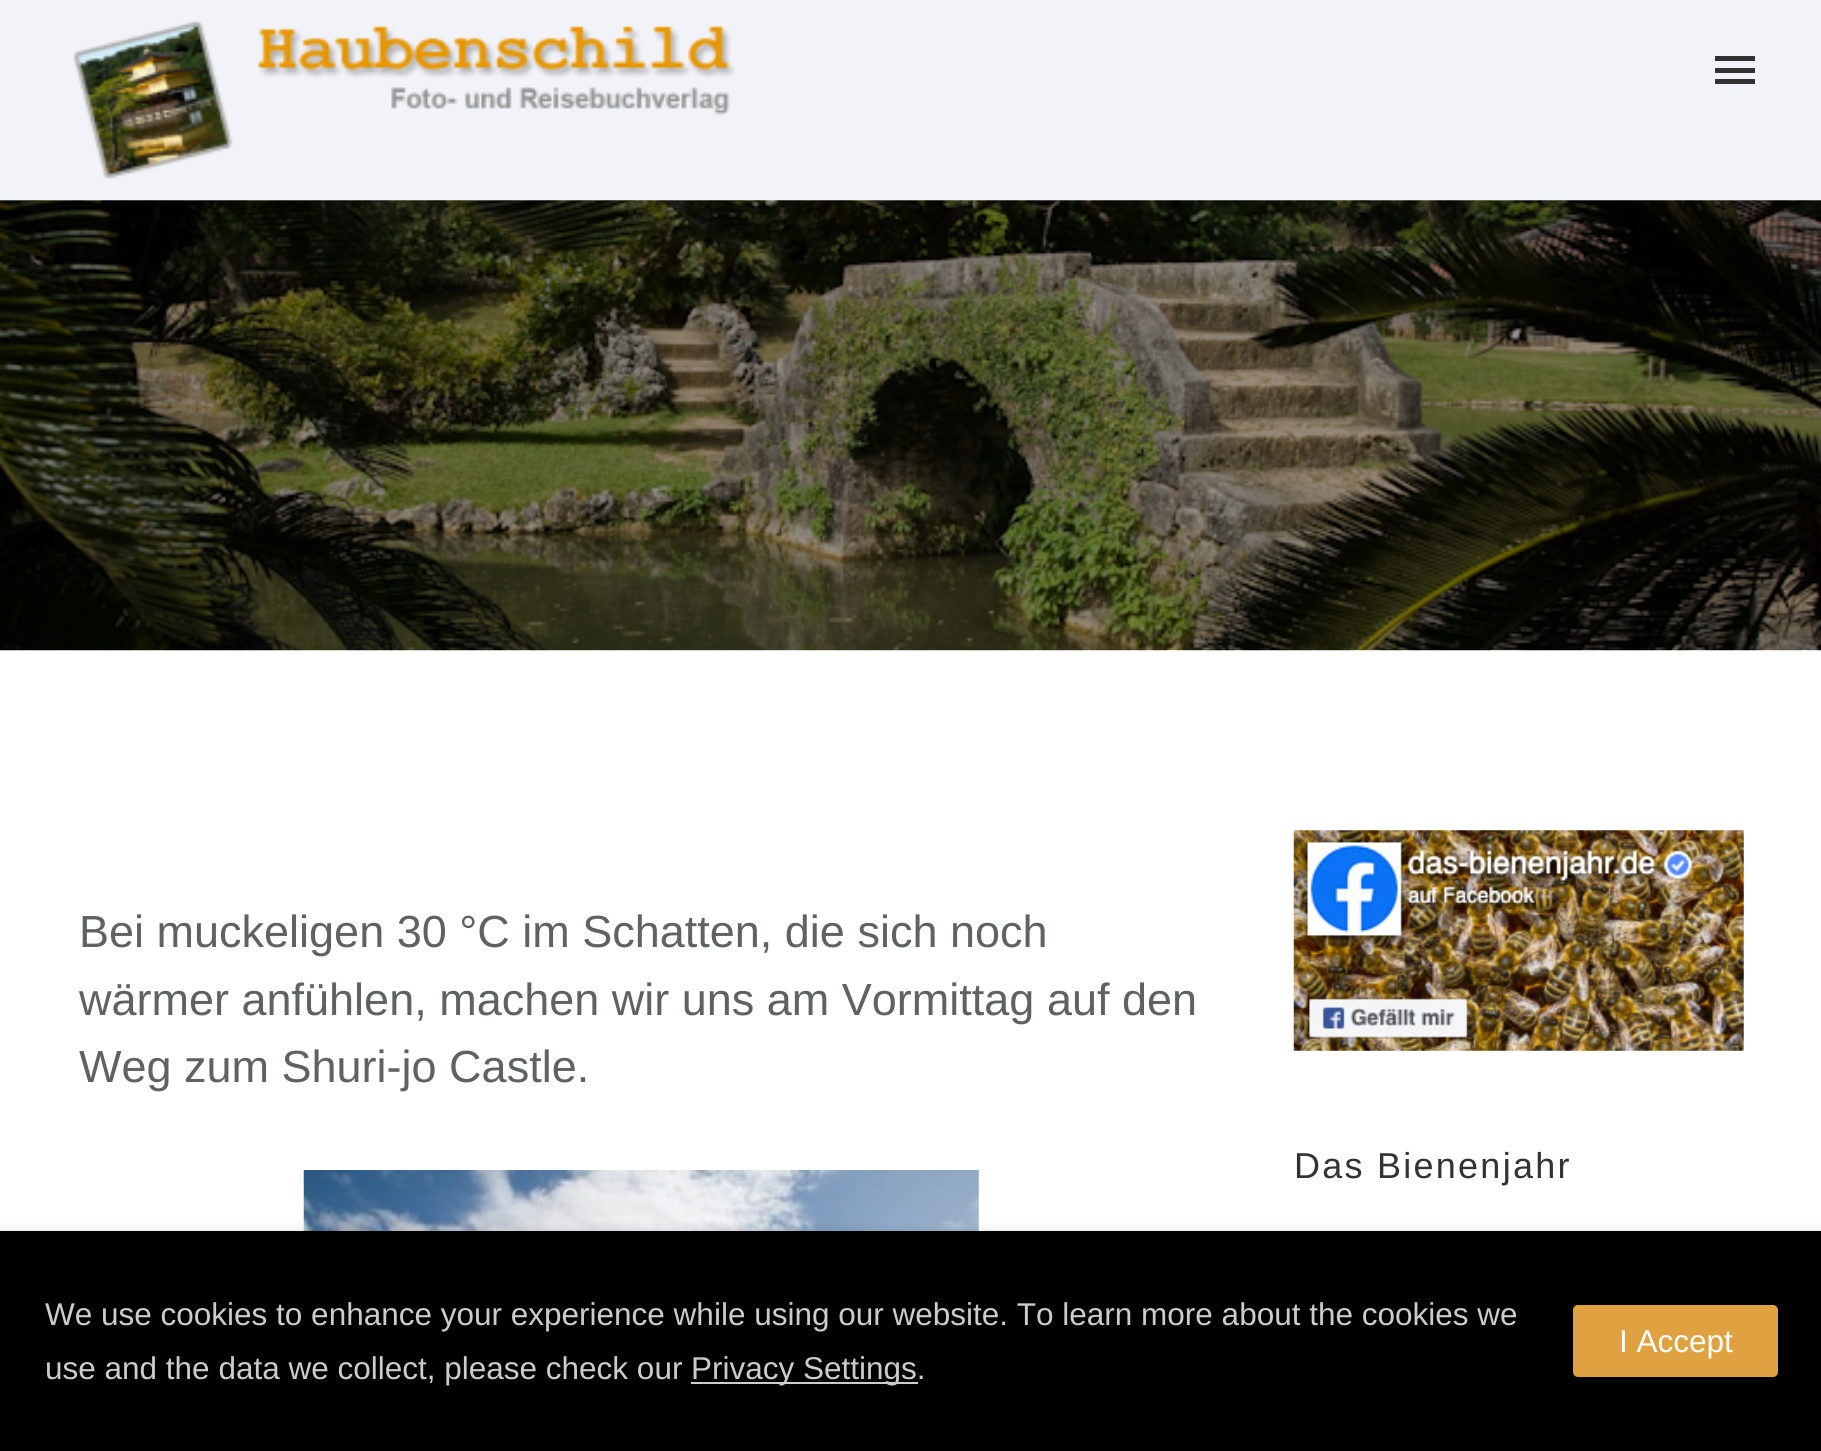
#include <cairo.h>
#include <math.h>
#include <stddef.h>

static cairo_t *c;
static void C(unsigned color){cairo_set_source_rgb(c, (color >> 16) / 255.0, (color >> 8 & 255) / 255.0, (color & 255) / 255.0);}
static void F(const char *family, double size, int italic, int bold){cairo_select_font_face(c, family, italic ? CAIRO_FONT_SLANT_ITALIC : CAIRO_FONT_SLANT_NORMAL,bold ? CAIRO_FONT_WEIGHT_BOLD : CAIRO_FONT_WEIGHT_NORMAL);cairo_set_font_size(c, size);}
static void T(double x, double y, const char *s){cairo_move_to(c, x, y);cairo_show_text(c, s);}
static void L(double x, double y, const char *s, double letter, double word){cairo_move_to(c, x, y);while (*s) {char ch[5] = {0};int n = 0;do ch[n++] = *s++; while ((*s & 0xC0) == 0x80);cairo_show_text(c, ch);cairo_rel_move_to(c, letter + word * (*ch == ' '), 0);}}
static void R(double x, double y, double w, double h){cairo_rectangle(c, x, y, w, h);cairo_fill(c);}
static void Q(double x, double y, double w, double h, double r){cairo_new_sub_path(c);cairo_arc(c, x + w - r, y + h - r, r, 0, M_PI / 2);cairo_arc(c, x + r, y + h - r, r, M_PI / 2, M_PI);cairo_arc(c, x + r, y + r, r, M_PI, 1.5 * M_PI);cairo_arc(c, x + w - r, y + r, r, 1.5 * M_PI, 2 * M_PI);cairo_close_path(c);}
static void S(double x, double y, double w, double h, double r, double blur, double alpha){cairo_push_group_with_content(c, CAIRO_CONTENT_ALPHA);cairo_set_operator(c, CAIRO_OPERATOR_SOURCE);for (int i = 15; i >= -15 && fmin(w, h) + blur * i / 3 > 0; i -= 2) {double e = blur * i / 6;cairo_set_source_rgba(c, 0, 0, 0, alpha * erfc((i - 1) / 8.5) / 2);Q(x - e, y - e, w + 2 * e, h + 2 * e, fmax(0, fmin(r + e + blur * .6, fmin(w, h) / 2 + e)));cairo_fill(c);}cairo_pattern_t *soft = cairo_pop_group(c);cairo_mask(c, soft);cairo_pattern_destroy(soft);}
static void I(const char *path, double x, double y, double w, double h){cairo_surface_t *image = cairo_image_surface_create_from_png(path);cairo_save(c);cairo_set_source_surface(c, image, x, y);cairo_rectangle(c, x, y, w, h);cairo_fill(c);cairo_restore(c);cairo_surface_destroy(image);}
int main(void) {
cairo_surface_t *surface = cairo_image_surface_create(CAIRO_FORMAT_RGB24, 1821, 1451);
c = cairo_create(surface);
cairo_font_options_t *options = cairo_font_options_create();
cairo_font_options_set_hint_metrics(options, CAIRO_HINT_METRICS_OFF);
cairo_font_options_set_hint_style(options, CAIRO_HINT_STYLE_NONE);
cairo_set_font_options(c, options);
cairo_set_miter_limit(c, 4);
C(0xffffff);
cairo_paint(c);
C(0xf2f3f8);
R(0,0,1821,200);
I("1.png",73,20,662,160);
C(0x323232);
R(1715,56,40,5);
R(1715,68,40,5);
R(1715,79,40,5);
I("2.png",0,200,1821,451);
F("Liberation Sans",45,0,0);
C(0x5f6263);
T(79,947,"Bei muckeligen 30 °C im Schatten, die sich noch");
T(79,1015,"wärmer anfühlen, machen wir uns am Vormittag auf den");
T(79,1082,"Weg zum Shuri-jo Castle.");
I("3.png",303,1170,676,61);
I("4.png",1293,830,451,221);
F("Liberation Sans",36,0,0);
C(0x333333);
L(1294,1178,"Das Bienenjahr",2.25,0);
C(0x0c0c0d);
S(0,1229,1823,220,0,4.5,.1);
C(0x000000);
R(0,1231,1821,220);
F("Liberation Sans",31.5,0,0);
C(0xcccccc);
T(45,1325,"We use cookies to enhance your experience while using our website. To learn more about the cookies we");
T(45,1379,"use and the data we collect, please check our");
R(691,1382,227,2);
T(691,1379,"Privacy Settings.");
C(0xe0a240);
Q(1573,1305,205,72,5);
cairo_fill(c);
C(0xffffff);
T(1619,1352,"I Accept");
cairo_surface_write_to_png(surface, "o.png");
cairo_font_options_destroy(options);
cairo_destroy(c);
cairo_surface_destroy(surface);
return 0;
}
